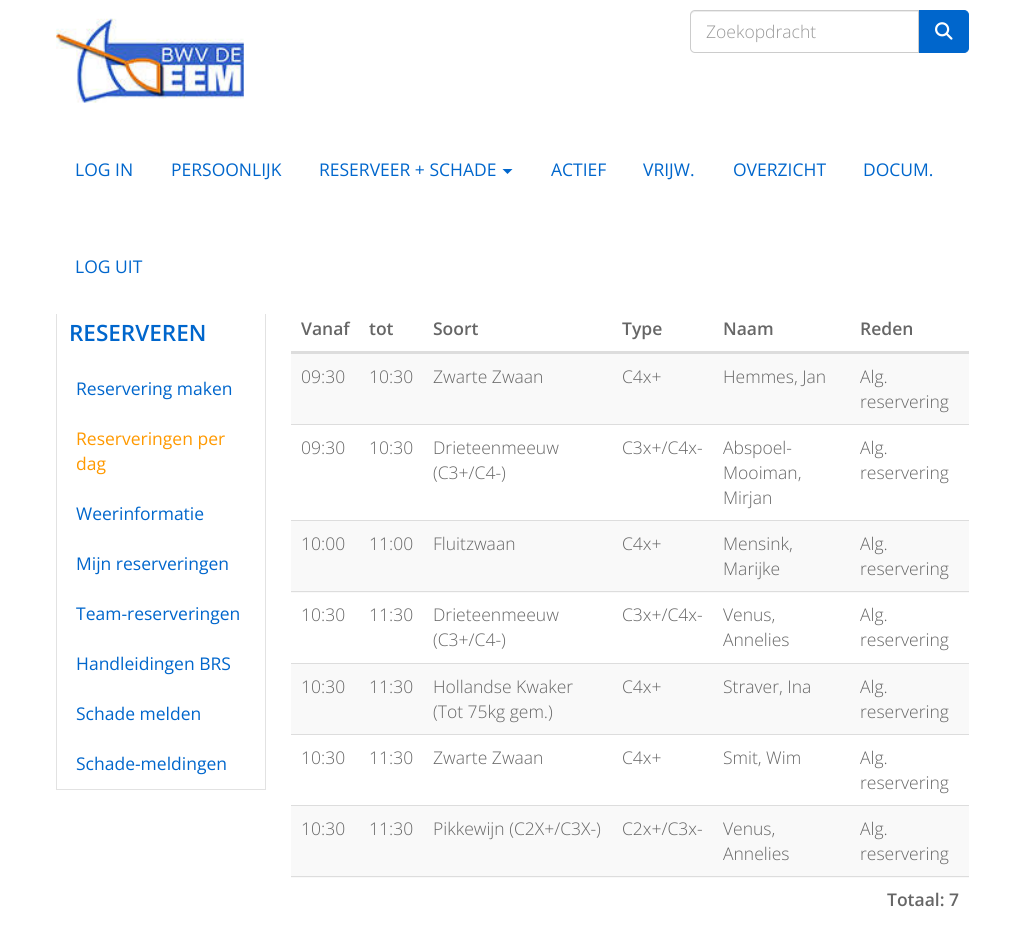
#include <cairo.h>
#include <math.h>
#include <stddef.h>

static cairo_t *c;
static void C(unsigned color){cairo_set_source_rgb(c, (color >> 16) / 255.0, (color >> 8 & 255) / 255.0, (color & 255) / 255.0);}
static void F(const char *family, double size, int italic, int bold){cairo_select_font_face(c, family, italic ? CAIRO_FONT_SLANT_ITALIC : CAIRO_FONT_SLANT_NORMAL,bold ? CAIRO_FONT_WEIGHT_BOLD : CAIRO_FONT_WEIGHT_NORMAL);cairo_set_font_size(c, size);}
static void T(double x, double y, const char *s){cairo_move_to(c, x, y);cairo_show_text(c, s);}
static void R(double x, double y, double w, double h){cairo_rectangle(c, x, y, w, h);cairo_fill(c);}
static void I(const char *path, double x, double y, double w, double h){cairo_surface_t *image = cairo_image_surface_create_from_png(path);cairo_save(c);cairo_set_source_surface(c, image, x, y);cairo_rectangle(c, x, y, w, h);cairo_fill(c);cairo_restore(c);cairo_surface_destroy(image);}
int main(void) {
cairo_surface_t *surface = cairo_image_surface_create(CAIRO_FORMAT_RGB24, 1024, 948);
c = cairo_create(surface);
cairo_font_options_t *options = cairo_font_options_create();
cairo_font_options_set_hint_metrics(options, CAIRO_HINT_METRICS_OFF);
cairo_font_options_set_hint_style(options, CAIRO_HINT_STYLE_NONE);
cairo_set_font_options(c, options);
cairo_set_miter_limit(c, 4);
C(0xffffff);
cairo_paint(c);
cairo_rectangle(c,56.5,300.5,209,489);
C(0xe2e2e2);
cairo_set_line_width(c,1);
cairo_stroke(c);
C(0xffffff);
R(56,300,210,14);
I("1.png",56,18,188,85);
C(0xececec);
cairo_new_path(c);
cairo_move_to(c,695,12);
cairo_line_to(c,918,12);
cairo_line_to(c,918,11);
cairo_line_to(c,695,11);
cairo_curve_to(c,692,11,691,13,691,16);
cairo_curve_to(c,691,14,693,12,695,12);
cairo_close_path(c);
cairo_fill(c);
cairo_new_path(c);
cairo_move_to(c,695,10.5);
cairo_line_to(c,918.5,10.5);
cairo_line_to(c,918.5,52.5);
cairo_line_to(c,695,52.5);
cairo_curve_to(c,692.5,52.5,690.5,50.5,690.5,48);
cairo_line_to(c,690.5,15);
cairo_curve_to(c,690.5,12.5,692.5,10.5,695,10.5);
cairo_close_path(c);
C(0xcccccc);
cairo_stroke(c);
F("Open Sans Light",17.5,0,0);
C(0x999999);
T(706,38,"Zoekopdracht");
C(0x0066cc);
cairo_new_path(c);
cairo_move_to(c,919.5,10.5);
cairo_line_to(c,964,10.5);
cairo_curve_to(c,966.5,10.5,968.5,12.5,968.5,15);
cairo_line_to(c,968.5,48);
cairo_curve_to(c,968.5,50.5,966.5,52.5,964,52.5);
cairo_line_to(c,919.5,52.5);
cairo_close_path(c);
cairo_fill_preserve(c);
cairo_stroke(c);
I("2.png",935,22,18,18);
F("Open Sans",17.5,0,0);
T(75,176,"LOG IN");
T(171,176,"PERSOONLIJK");
T(319,176,"RESERVEER + SCHADE");
cairo_new_path(c);
cairo_move_to(c,502.5,169);
cairo_line_to(c,512.5,169);
cairo_line_to(c,507.5,174);
cairo_close_path(c);
cairo_fill(c);
T(551,176,"ACTIEF");
T(643,176,"VRIJW.");
T(733,176,"OVERZICHT");
T(863,176,"DOCUM.");
T(75,273,"LOG UIT");
F("Open Sans SemiBold",22.5,0,0);
T(69,341,"RESERVEREN");
F("Open Sans",17.5,0,0);
T(76,395,"Reservering maken");
C(0xff9900);
T(76,445,"Reserveringen per");
T(76,470,"dag");
C(0x0066cc);
T(76,520,"Weerinformatie");
T(76,570,"Mijn reserveringen");
T(76,620,"Team-reserveringen");
T(76,670,"Handleidingen BRS");
T(76,720,"Schade melden");
T(76,770,"Schade-meldingen");
F("Open Sans SemiBold",17.5,0,0);
C(0x666666);
T(301,335,"Vanaf");
T(369,335,"tot");
T(433,335,"Soort");
T(622,335,"Type");
T(723,335,"Naam");
C(0xdddddd);
R(291,351,678,3);
C(0x666666);
T(860,335,"Reden");
C(0xf9f9f9);
R(291,354,678,70);
F("Open Sans Light",17.5,0,0);
C(0x666666);
T(301,383,"09:30");
T(369,383,"10:30");
T(433,383,"Zwarte Zwaan");
T(622,383,"C4x+");
T(723,383,"Hemmes, Jan");
T(860,383,"Alg.");
T(860,408,"reservering");
T(301,454,"09:30");
T(369,454,"10:30");
T(433,454,"Drieteenmeeuw");
T(433,479,"(C3+/C4-)");
T(622,454,"C3x+/C4x-");
T(723,454,"Abspoel-");
T(723,479,"Mooiman,");
T(723,504,"Mirjan");
C(0xdddddd);
R(291,424,678,1);
C(0x666666);
T(860,454,"Alg.");
T(860,479,"reservering");
C(0xf9f9f9);
R(291,521,678,72);
C(0x666666);
T(301,550,"10:00");
T(369,550,"11:00");
T(433,550,"Fluitzwaan");
T(622,550,"C4x+");
T(723,550,"Mensink,");
T(723,575,"Marijke");
C(0xdddddd);
R(291,520,678,1);
C(0x666666);
T(860,550,"Alg.");
T(860,575,"reservering");
T(301,621,"10:30");
T(369,621,"11:30");
T(433,621,"Drieteenmeeuw");
T(433,646,"(C3+/C4-)");
T(622,621,"C3x+/C4x-");
T(723,621,"Venus,");
T(723,646,"Annelies");
C(0xdddddd);
R(291,591,678,1);
C(0x666666);
T(860,621,"Alg.");
T(860,646,"reservering");
C(0xf9f9f9);
R(291,664,678,70);
C(0x666666);
T(301,693,"10:30");
T(369,693,"11:30");
T(433,693,"Hollandse Kwaker");
T(433,718,"(Tot 75kg gem.)");
T(622,693,"C4x+");
T(723,693,"Straver, Ina");
C(0xdddddd);
R(291,663,678,1);
C(0x666666);
T(860,693,"Alg.");
T(860,718,"reservering");
T(301,764,"10:30");
T(369,764,"11:30");
T(433,764,"Zwarte Zwaan");
T(622,764,"C4x+");
T(723,764,"Smit, Wim");
C(0xdddddd);
R(291,734,678,1);
C(0x666666);
T(860,764,"Alg.");
T(860,789,"reservering");
C(0xf9f9f9);
R(291,806,678,72);
C(0x666666);
T(301,835,"10:30");
T(369,835,"11:30");
T(433,835,"Pikkewijn (C2X+/C3X-)");
T(622,835,"C2x+/C3x-");
T(723,835,"Venus,");
T(723,860,"Annelies");
C(0xdddddd);
R(291,805,678,1);
C(0x666666);
T(860,835,"Alg.");
T(860,860,"reservering");
C(0xdddddd);
R(291,876,678,1);
F("Open Sans SemiBold",17.5,0,0);
C(0x666666);
T(887,906,"Totaal: 7");
cairo_surface_write_to_png(surface, "o.png");
cairo_font_options_destroy(options);
cairo_destroy(c);
cairo_surface_destroy(surface);
return 0;
}
